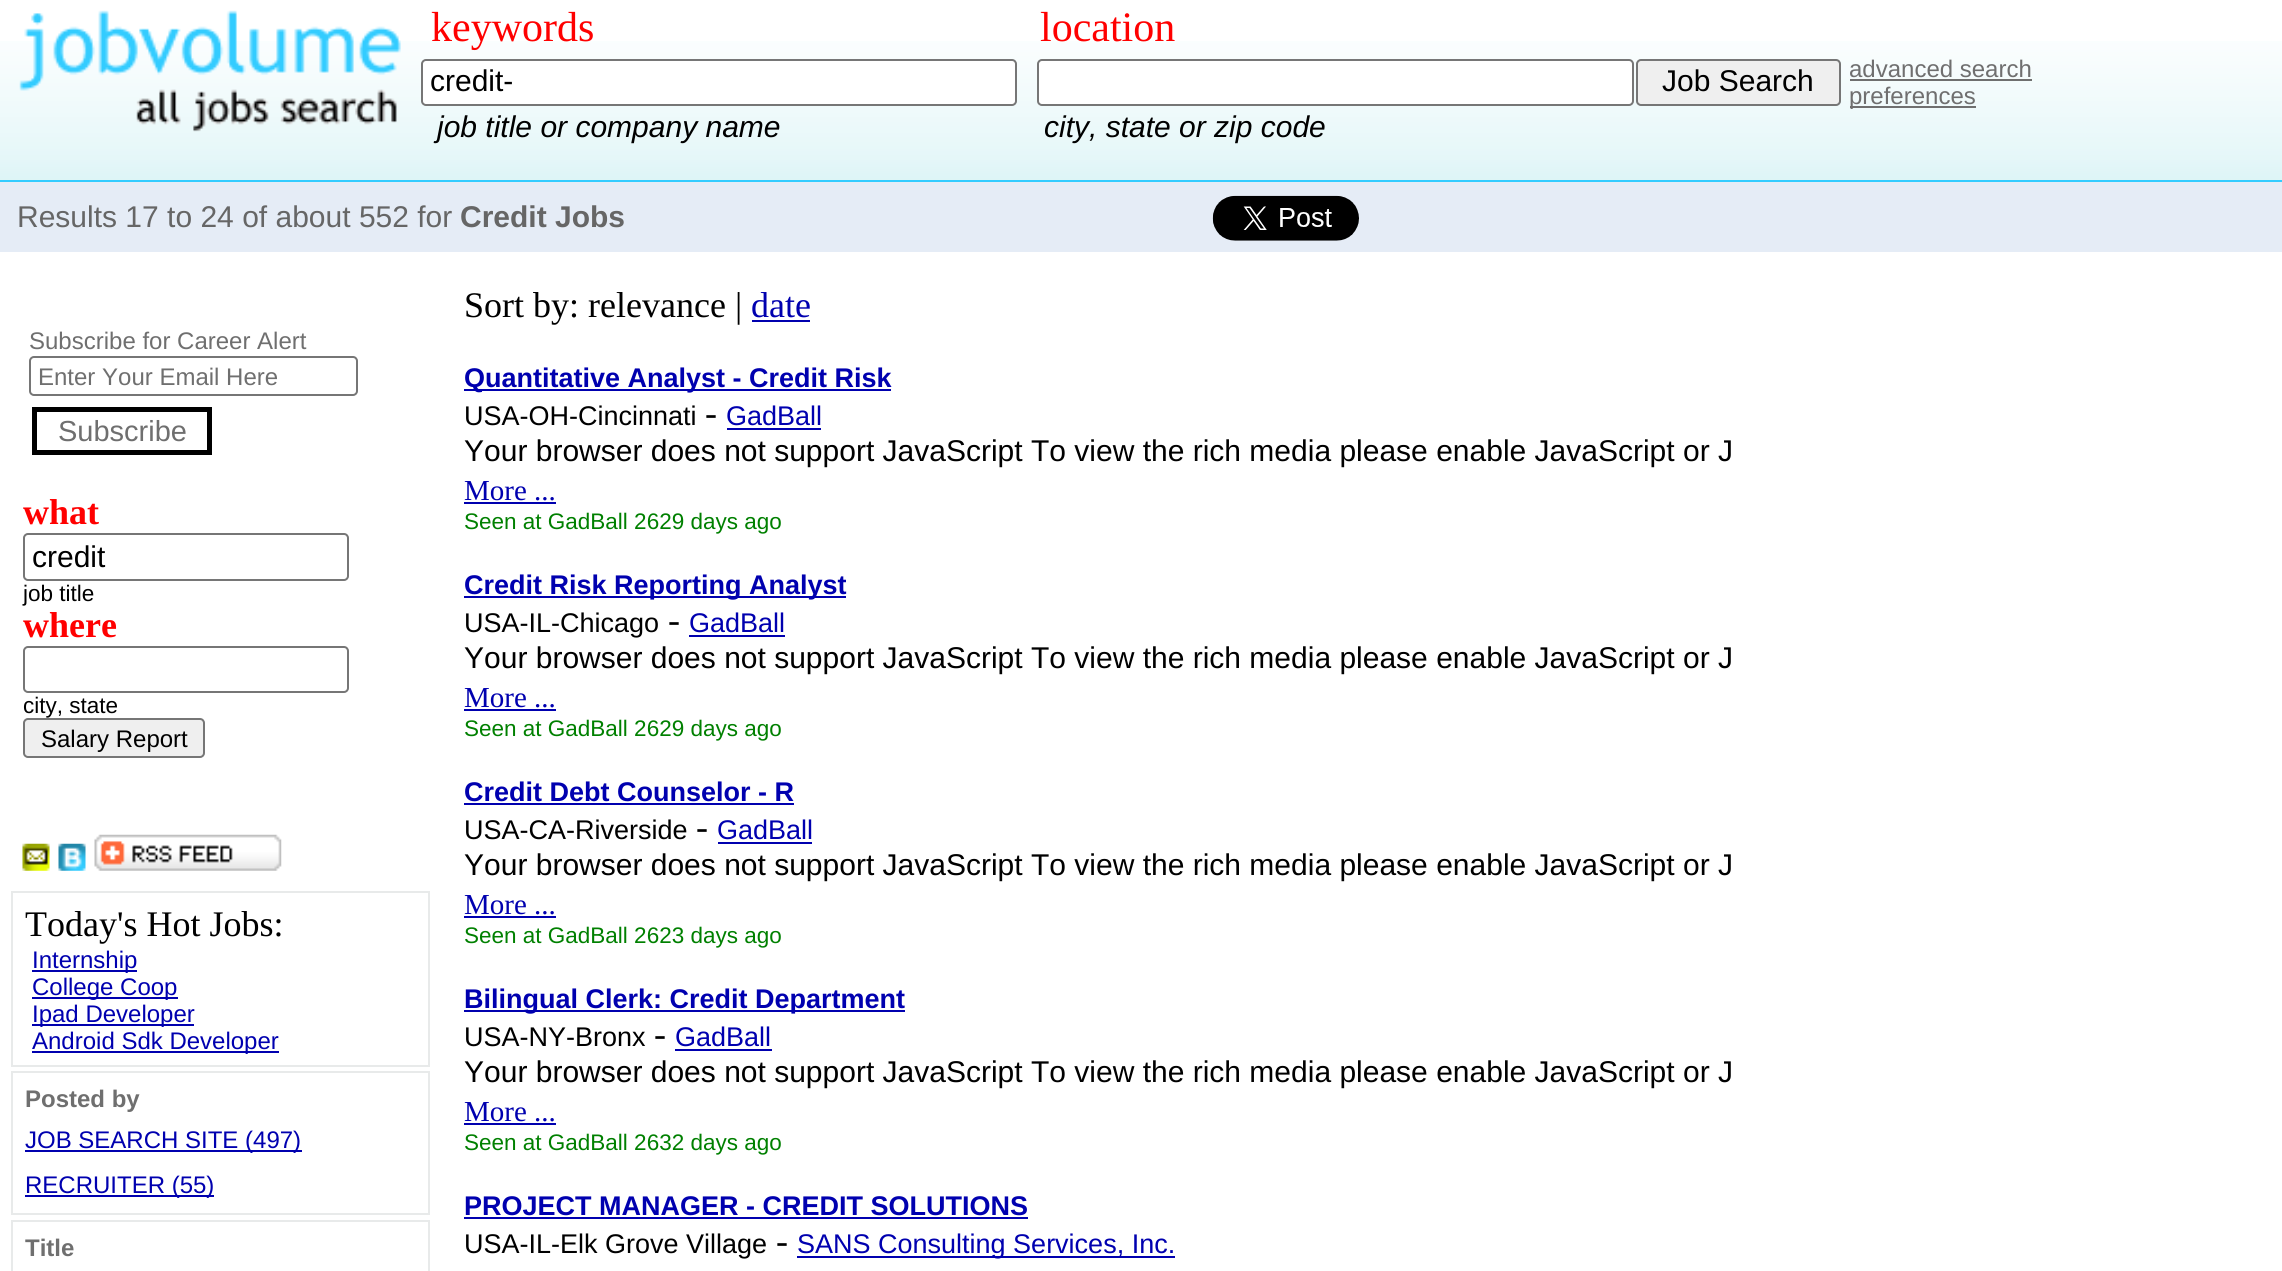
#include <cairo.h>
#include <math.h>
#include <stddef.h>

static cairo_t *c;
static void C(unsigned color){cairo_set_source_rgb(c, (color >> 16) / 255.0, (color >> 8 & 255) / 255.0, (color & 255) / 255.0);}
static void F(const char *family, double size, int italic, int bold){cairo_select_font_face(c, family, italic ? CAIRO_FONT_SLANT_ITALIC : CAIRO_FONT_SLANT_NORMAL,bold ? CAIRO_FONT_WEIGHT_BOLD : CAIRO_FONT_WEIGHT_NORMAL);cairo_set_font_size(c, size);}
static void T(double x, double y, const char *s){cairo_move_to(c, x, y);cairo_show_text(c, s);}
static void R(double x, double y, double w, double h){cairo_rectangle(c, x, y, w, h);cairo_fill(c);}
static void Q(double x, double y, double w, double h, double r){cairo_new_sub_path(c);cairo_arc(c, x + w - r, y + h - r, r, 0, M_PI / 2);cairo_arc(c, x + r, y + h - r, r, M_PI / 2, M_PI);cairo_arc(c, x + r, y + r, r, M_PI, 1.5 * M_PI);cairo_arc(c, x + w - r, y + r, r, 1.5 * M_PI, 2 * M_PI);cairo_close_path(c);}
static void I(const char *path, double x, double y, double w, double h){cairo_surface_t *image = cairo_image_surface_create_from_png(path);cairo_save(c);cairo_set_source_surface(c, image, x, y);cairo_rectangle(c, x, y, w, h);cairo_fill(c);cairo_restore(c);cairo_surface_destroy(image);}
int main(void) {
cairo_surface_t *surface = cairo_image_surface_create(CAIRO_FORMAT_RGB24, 2282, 1271);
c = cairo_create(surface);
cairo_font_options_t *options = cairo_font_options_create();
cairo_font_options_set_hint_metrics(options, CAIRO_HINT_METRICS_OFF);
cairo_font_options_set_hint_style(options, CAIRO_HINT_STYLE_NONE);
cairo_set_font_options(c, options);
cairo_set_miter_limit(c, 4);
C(0xffffff);
cairo_paint(c);
I("1.png",0,41,2282,139);
I("2.png",19,10,382,122);
F("Liberation Serif",42,0,0);
C(0xff0000);
T(431,41,"keywords");
T(1040,41,"location");
C(0xffffff);
Q(422,60,594,45,4);
cairo_fill_preserve(c);
C(0x767676);
cairo_stroke(c);
F("Liberation Sans",30,0,0);
C(0x000000);
T(430,91,"credit-");
C(0xffffff);
Q(1038,60,595,45,4);
cairo_fill_preserve(c);
C(0x767676);
cairo_stroke(c);
C(0xefefef);
Q(1637,60,203,45,4);
cairo_fill_preserve(c);
C(0x767676);
cairo_stroke(c);
C(0x000000);
T(1662,91,"Job Search");
F("Liberation Sans",24,0,0);
C(0x6f6f6f);
T(1849,77,"advanced search");
R(1850,79,182,2);
R(1850,106,126,2);
T(1849,104,"preferences");
F("Liberation Sans",30,1,0);
C(0x000000);
T(437,137,"job title or company name");
T(1044,137,"city, state or zip code");
C(0x33ccff);
R(0,180,2282,2);
C(0xe5ecf6);
R(0,182,2282,70);
F("Liberation Sans",30,0,0);
C(0x666666);
T(17,227,"Results 17 to 24 of about 552 for");
F("Liberation Sans",30,0,1);
T(460,227,"Credit Jobs");
I("3.png",1212,195,147,46);
F("Liberation Sans",24,0,0);
C(0x6f6f6f);
T(29,349,"Subscribe for Career Alert");
Q(30,357,327,38,4);
C(0x767676);
cairo_stroke(c);
C(0x6f6f6f);
T(38,385,"Enter Your Email Here");
cairo_rectangle(c,34.5,409.5,175,43);
C(0x000000);
cairo_set_line_width(c,5);
cairo_stroke(c);
F("Liberation Sans",29,0,0);
C(0x6f6f6f);
T(58,441,"Subscribe");
F("Liberation Serif",36,0,1);
C(0xff0000);
T(23,524,"what");
Q(24,534,324,46,4);
C(0x767676);
cairo_set_line_width(c,2);
cairo_stroke(c);
F("Liberation Sans",30,0,0);
C(0x000000);
T(32,567,"credit");
F("Liberation Sans",22.5,0,0);
T(23,601,"job title");
F("Liberation Serif",36,0,1);
C(0xff0000);
T(23,637,"where");
Q(24,647,324,45,4);
C(0x767676);
cairo_stroke(c);
F("Liberation Sans",22.5,0,0);
C(0x000000);
T(23,713,"city, state");
C(0xefefef);
Q(24,719,180,38,4);
cairo_fill_preserve(c);
C(0x767676);
cairo_stroke(c);
F("Liberation Sans",24,0,0);
C(0x000000);
T(41,747,"Salary Report");
I("4.png",22,843,28,28);
I("5.png",58,843,28,28);
I("6.png",94,834,188,37);
cairo_rectangle(c,12,892,417,174);
C(0xe8eaea);
cairo_stroke(c);
F("Liberation Serif",36,0,0);
C(0x000000);
T(25,936,"Today's Hot Jobs:");
C(0x0000af);
R(32,970,105,2);
F("Liberation Sans",24,0,0);
T(32,968,"Internship");
R(32,997,146,2);
T(32,995,"College Coop");
R(32,1024,162,2);
T(32,1022,"Ipad Developer");
R(32,1051,247,2);
T(32,1049,"Android Sdk Developer");
cairo_rectangle(c,12,1072,417,142);
C(0xe8eaea);
cairo_stroke(c);
F("Liberation Sans",24,0,1);
C(0x6f6f6f);
T(25,1107,"Posted by");
C(0x0000af);
R(25,1150,277,2);
F("Liberation Sans",24,0,0);
T(25,1148,"JOB SEARCH SITE (497)");
R(25,1195,189,2);
T(25,1193,"RECRUITER (55)");
cairo_rectangle(c,12,1221,417,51);
C(0xe8eaea);
cairo_stroke(c);
F("Liberation Sans",24,0,1);
C(0x6f6f6f);
T(25,1256,"Title");
F("Liberation Serif",36,0,0);
C(0x000000);
T(464,317,"Sort by: relevance |");
C(0x0000af);
T(751,317,"date");
R(752,320,58,2);
R(464,389,427,2);
F("Liberation Sans",27,0,1);
T(464,387,"Quantitative Analyst - Credit Risk");
F("Liberation Sans",27,0,0);
C(0x000000);
T(464,425,"USA-OH-Cincinnati");
F("Liberation Serif",36,0,0);
T(705,425,"-");
F("Liberation Sans",27,0,0);
C(0x0000af);
T(726,425,"GadBall");
R(727,428,94,2);
F("Liberation Sans",30,0,0);
C(0x000000);
T(464,461,"Your browser does not support JavaScript To view the rich media please enable JavaScript or J");
F("Liberation Serif",29,0,0);
C(0x0000af);
T(464,500,"More ...");
R(464,502,92,2);
F("Liberation Sans",22.5,0,0);
C(0x008000);
T(464,529,"Seen at GadBall 2629 days ago");
C(0x0000af);
R(464,596,382,2);
F("Liberation Sans",27,0,1);
T(464,594,"Credit Risk Reporting Analyst");
F("Liberation Sans",27,0,0);
C(0x000000);
T(464,632,"USA-IL-Chicago");
F("Liberation Serif",36,0,0);
T(668,632,"-");
F("Liberation Sans",27,0,0);
C(0x0000af);
T(689,632,"GadBall");
R(689,635,96,2);
F("Liberation Sans",30,0,0);
C(0x000000);
T(464,668,"Your browser does not support JavaScript To view the rich media please enable JavaScript or J");
F("Liberation Serif",29,0,0);
C(0x0000af);
T(464,707,"More ...");
R(464,709,92,2);
F("Liberation Sans",22.5,0,0);
C(0x008000);
T(464,736,"Seen at GadBall 2629 days ago");
F("Liberation Sans",27,0,1);
C(0x0000af);
T(464,801,"Credit Debt Counselor - R");
R(464,803,330,2);
F("Liberation Sans",27,0,0);
C(0x000000);
T(464,839,"USA-CA-Riverside");
F("Liberation Serif",36,0,0);
T(696,839,"-");
F("Liberation Sans",27,0,0);
C(0x0000af);
T(717,839,"GadBall");
R(718,842,94,2);
F("Liberation Sans",30,0,0);
C(0x000000);
T(464,875,"Your browser does not support JavaScript To view the rich media please enable JavaScript or J");
F("Liberation Serif",29,0,0);
C(0x0000af);
T(464,914,"More ...");
R(464,916,92,2);
F("Liberation Sans",22.5,0,0);
C(0x008000);
T(464,943,"Seen at GadBall 2623 days ago");
C(0x0000af);
R(464,1010,441,2);
F("Liberation Sans",27,0,1);
T(464,1008,"Bilingual Clerk: Credit Department");
F("Liberation Sans",27,0,0);
C(0x000000);
T(464,1046,"USA-NY-Bronx");
F("Liberation Serif",36,0,0);
T(654,1046,"-");
F("Liberation Sans",27,0,0);
C(0x0000af);
T(675,1046,"GadBall");
R(675,1049,97,2);
F("Liberation Sans",30,0,0);
C(0x000000);
T(464,1082,"Your browser does not support JavaScript To view the rich media please enable JavaScript or J");
F("Liberation Serif",29,0,0);
C(0x0000af);
T(464,1121,"More ...");
R(464,1123,92,2);
F("Liberation Sans",22.5,0,0);
C(0x008000);
T(464,1150,"Seen at GadBall 2632 days ago");
F("Liberation Sans",27,0,1);
C(0x0000af);
T(464,1215,"PROJECT MANAGER - CREDIT SOLUTIONS");
R(464,1217,564,2);
F("Liberation Sans",27,0,0);
C(0x000000);
T(464,1253,"USA-IL-Elk Grove Village");
F("Liberation Serif",36,0,0);
T(776,1253,"-");
C(0x0000af);
R(797,1256,378,2);
F("Liberation Sans",27,0,0);
T(797,1253,"SANS Consulting Services, Inc.");
cairo_surface_write_to_png(surface, "o.png");
cairo_font_options_destroy(options);
cairo_destroy(c);
cairo_surface_destroy(surface);
return 0;
}
